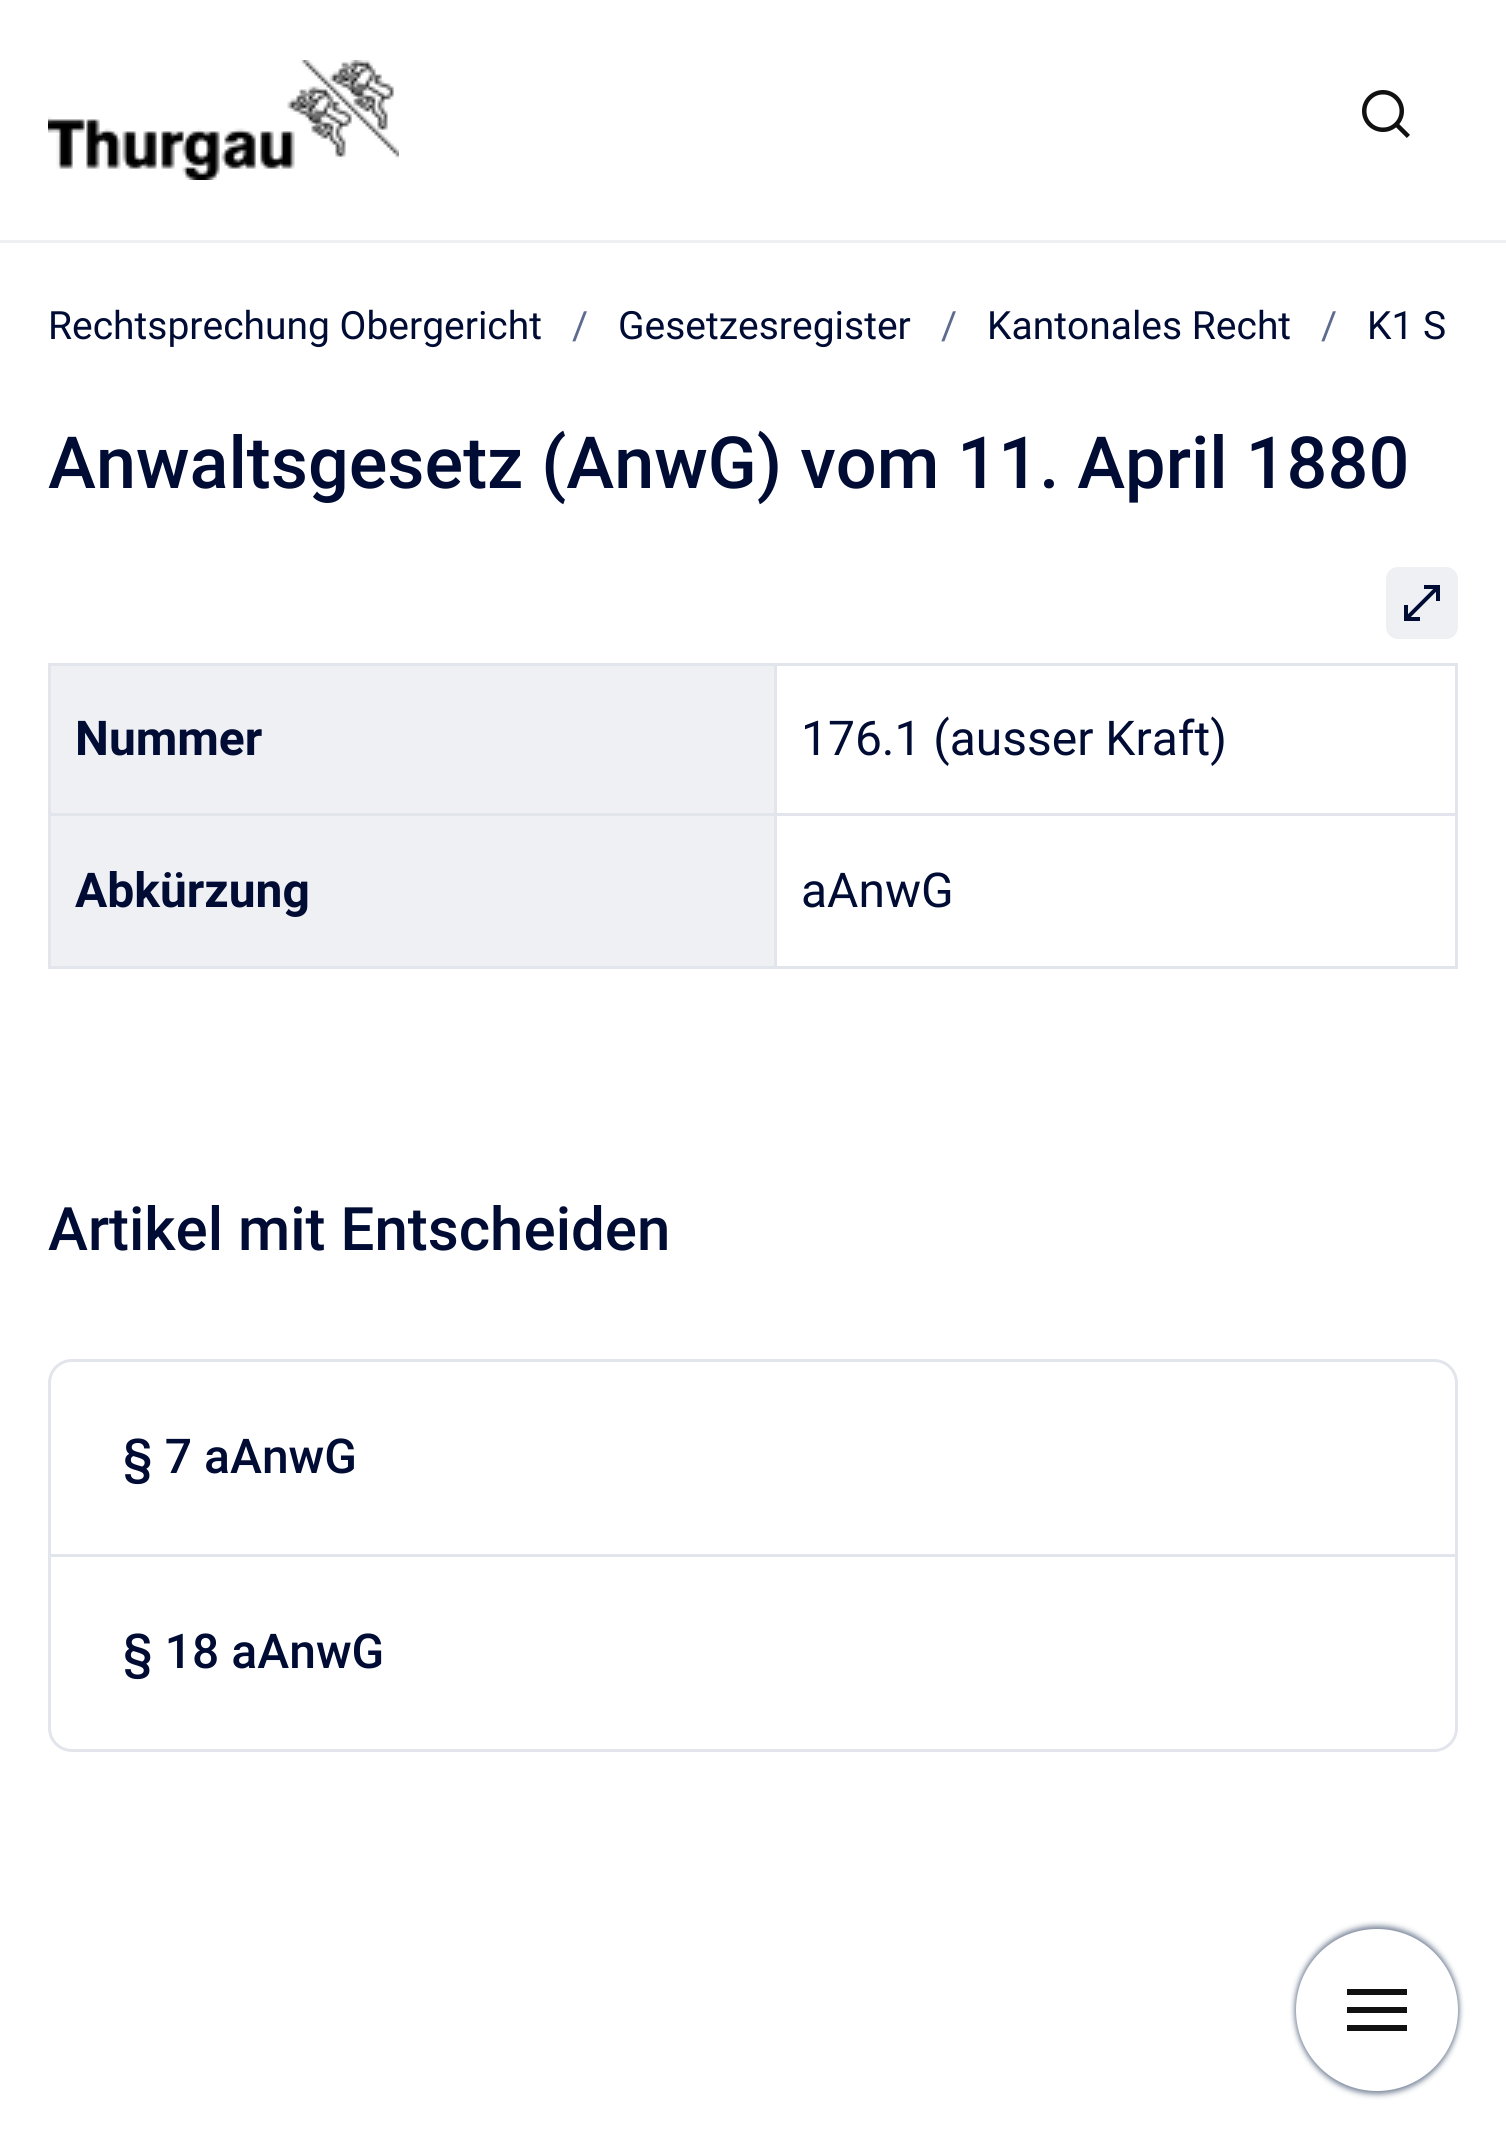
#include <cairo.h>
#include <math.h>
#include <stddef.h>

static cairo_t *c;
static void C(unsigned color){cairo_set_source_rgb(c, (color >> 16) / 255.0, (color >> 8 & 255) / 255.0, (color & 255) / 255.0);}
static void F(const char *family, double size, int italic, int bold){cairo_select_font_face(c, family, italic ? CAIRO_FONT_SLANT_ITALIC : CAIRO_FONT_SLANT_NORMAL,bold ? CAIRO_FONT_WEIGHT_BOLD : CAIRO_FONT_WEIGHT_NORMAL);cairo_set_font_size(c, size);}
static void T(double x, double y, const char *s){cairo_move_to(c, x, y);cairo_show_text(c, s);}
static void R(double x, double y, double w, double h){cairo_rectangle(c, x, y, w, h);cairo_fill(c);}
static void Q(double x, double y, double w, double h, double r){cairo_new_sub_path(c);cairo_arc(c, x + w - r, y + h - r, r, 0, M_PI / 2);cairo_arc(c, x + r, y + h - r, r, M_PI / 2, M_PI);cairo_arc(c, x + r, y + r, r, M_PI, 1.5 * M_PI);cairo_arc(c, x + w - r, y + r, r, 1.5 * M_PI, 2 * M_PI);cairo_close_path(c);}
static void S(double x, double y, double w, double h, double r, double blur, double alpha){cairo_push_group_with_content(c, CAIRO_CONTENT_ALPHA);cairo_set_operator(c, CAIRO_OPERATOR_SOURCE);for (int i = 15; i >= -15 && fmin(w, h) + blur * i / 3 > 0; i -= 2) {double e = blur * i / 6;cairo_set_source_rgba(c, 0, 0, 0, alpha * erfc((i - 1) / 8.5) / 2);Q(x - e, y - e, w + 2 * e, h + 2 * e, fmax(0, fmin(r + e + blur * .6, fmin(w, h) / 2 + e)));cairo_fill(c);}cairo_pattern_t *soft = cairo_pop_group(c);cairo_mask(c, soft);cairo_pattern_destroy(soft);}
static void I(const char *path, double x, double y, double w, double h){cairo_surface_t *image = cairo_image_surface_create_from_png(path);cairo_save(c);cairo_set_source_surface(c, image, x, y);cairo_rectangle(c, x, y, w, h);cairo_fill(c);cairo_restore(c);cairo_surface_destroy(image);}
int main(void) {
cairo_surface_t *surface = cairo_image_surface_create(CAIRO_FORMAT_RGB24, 1506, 2137);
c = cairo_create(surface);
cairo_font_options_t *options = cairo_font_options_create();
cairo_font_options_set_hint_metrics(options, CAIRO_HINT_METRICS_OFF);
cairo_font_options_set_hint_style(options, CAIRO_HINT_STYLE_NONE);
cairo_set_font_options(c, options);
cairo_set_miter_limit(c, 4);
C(0xffffff);
cairo_paint(c);
C(0xeff0f4);
R(0,240,1506,3);
I("1.png",48,60,351,120);
I("2.png",1362,90,48,48);
F("Roboto",39,0,0);
C(0x000c34);
T(48,339,"Rechtsprechung Obergericht");
C(0x5d6b8f);
T(572,339,"/");
C(0x000c34);
T(618,339,"Gesetzesregister");
C(0x5d6b8f);
T(941,339,"/");
C(0x000c34);
T(987,339,"Kantonales Recht");
C(0x5d6b8f);
T(1321,339,"/");
C(0x000c34);
T(1367,339,"K1 S");
F("Roboto Medium",72,0,0);
T(48,488,"Anwaltsgesetz (AnwG) vom 11. April 1880");
C(0xeff0f4);
Q(1387.5,568.5,69,69,10.5);
cairo_fill_preserve(c);
cairo_set_line_width(c,3);
cairo_stroke(c);
I("3.png",1404,585,36,36);
C(0xe2e5eb);
R(48,663,1410,3);
R(1455,663,3,306);
R(48,966,1410,3);
R(48,663,3,306);
C(0xeff0f4);
R(51,666,723,147);
F("Roboto",48,0,1);
C(0x000c34);
T(75,755,"Nummer");
C(0xe2e5eb);
R(774,813,684,3);
R(774,813,3,156);
R(48,813,729,3);
R(774,663,3,153);
F("Roboto",48,0,0);
C(0x000c34);
T(801,755,"176.1 (ausser Kraft)");
C(0xeff0f4);
R(51,816,723,150);
F("Roboto",48,0,1);
C(0x000c34);
T(75,907,"Abkürzung");
F("Roboto",48,0,0);
T(801,907,"aAnwG");
F("Roboto Medium",60,0,0);
T(48,1250,"Artikel mit Entscheiden");
Q(49.5,1360.5,1407,390,22.5);
C(0xe2e5eb);
cairo_stroke(c);
F("Roboto Medium",48,0,0);
C(0x000c34);
T(123,1473,"§ 7 aAnwG");
C(0xe2e5eb);
R(51,1554,1404,3);
C(0x000c34);
T(123,1668,"§ 18 aAnwG");
C(0x7a869a);
S(1296,1926,162,162,81,3,1);
S(1296,1932,162,162,81,3,1);
C(0xffffff);
cairo_arc(c,1377,2010,81,0,2 * M_PI);
cairo_fill(c);
C(0x111111);
R(1347,1989,60,6);
R(1347,2007,60,6);
R(1347,2025,60,6);
cairo_surface_write_to_png(surface, "o.png");
cairo_font_options_destroy(options);
cairo_destroy(c);
cairo_surface_destroy(surface);
return 0;
}
